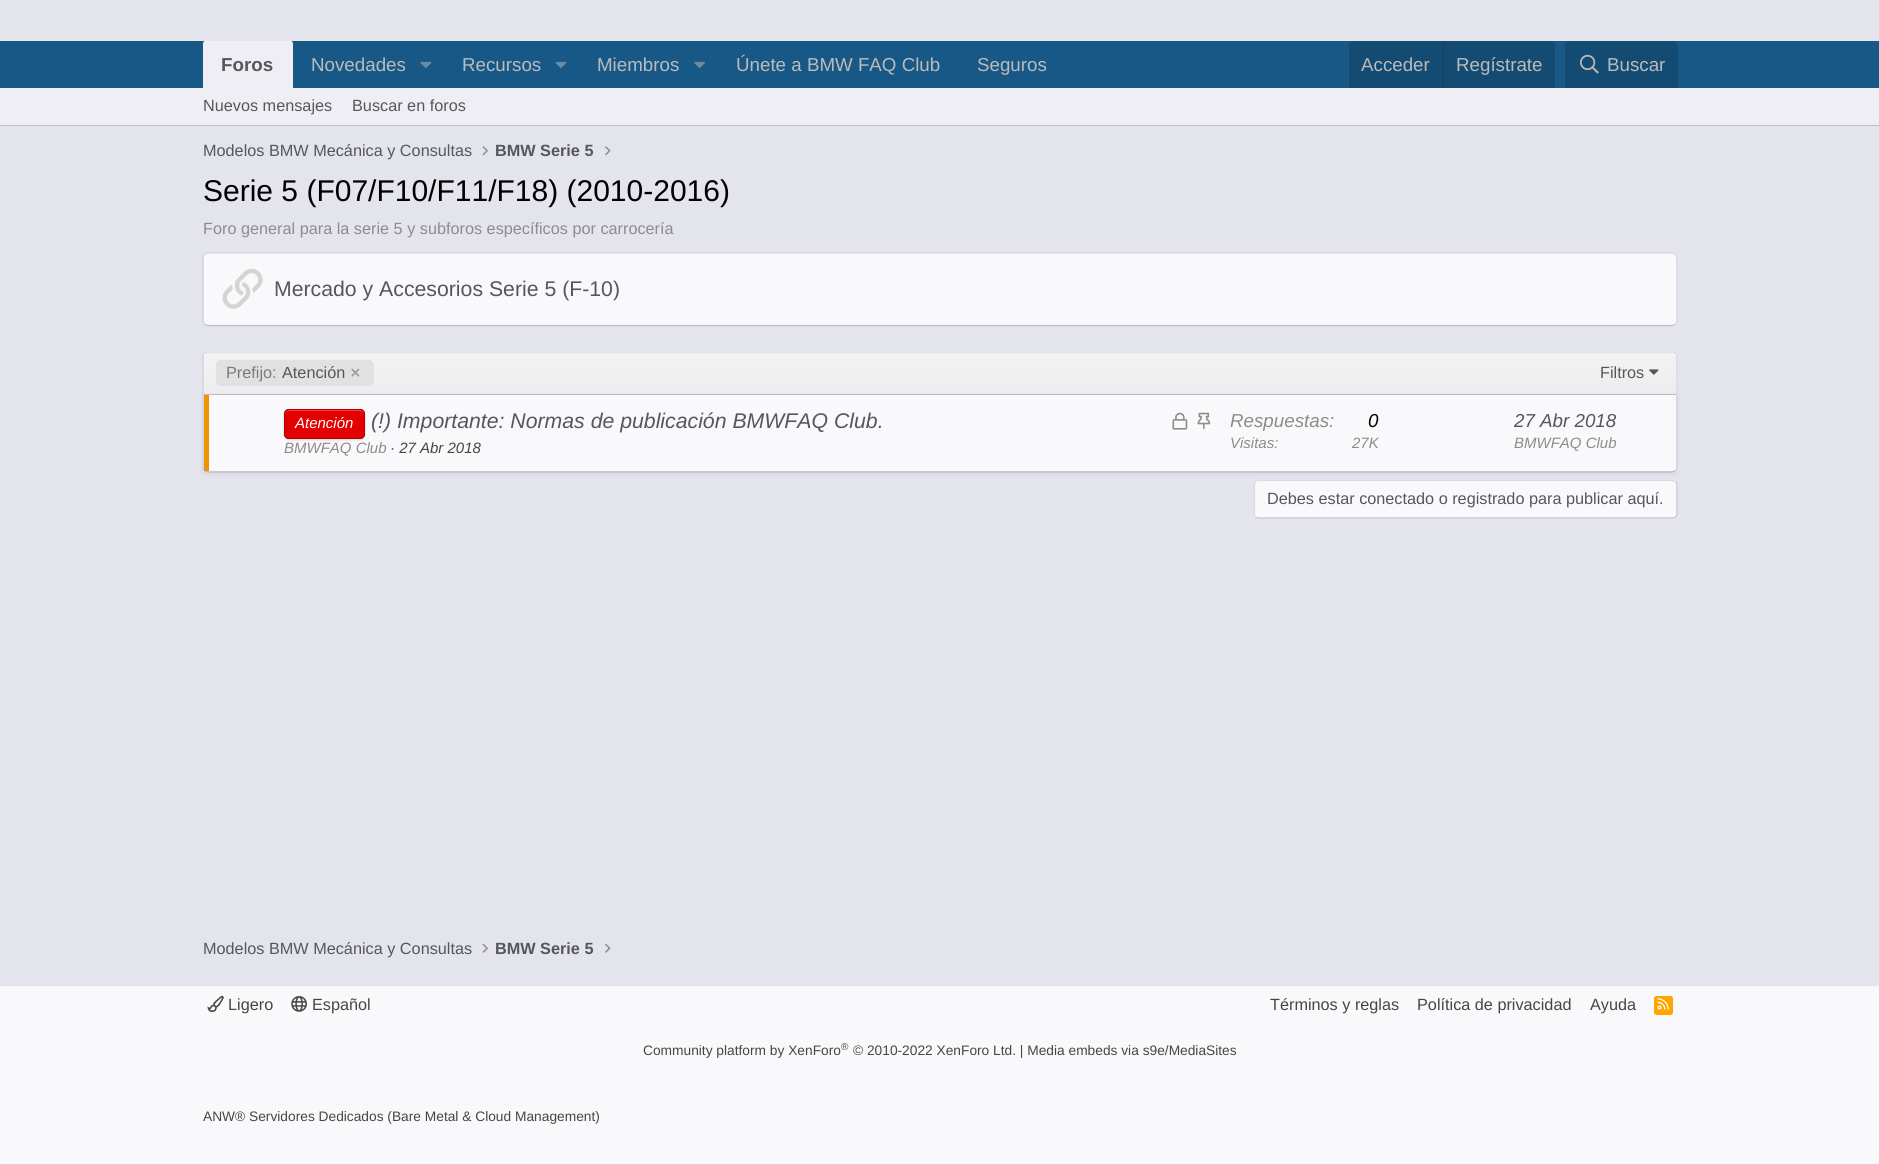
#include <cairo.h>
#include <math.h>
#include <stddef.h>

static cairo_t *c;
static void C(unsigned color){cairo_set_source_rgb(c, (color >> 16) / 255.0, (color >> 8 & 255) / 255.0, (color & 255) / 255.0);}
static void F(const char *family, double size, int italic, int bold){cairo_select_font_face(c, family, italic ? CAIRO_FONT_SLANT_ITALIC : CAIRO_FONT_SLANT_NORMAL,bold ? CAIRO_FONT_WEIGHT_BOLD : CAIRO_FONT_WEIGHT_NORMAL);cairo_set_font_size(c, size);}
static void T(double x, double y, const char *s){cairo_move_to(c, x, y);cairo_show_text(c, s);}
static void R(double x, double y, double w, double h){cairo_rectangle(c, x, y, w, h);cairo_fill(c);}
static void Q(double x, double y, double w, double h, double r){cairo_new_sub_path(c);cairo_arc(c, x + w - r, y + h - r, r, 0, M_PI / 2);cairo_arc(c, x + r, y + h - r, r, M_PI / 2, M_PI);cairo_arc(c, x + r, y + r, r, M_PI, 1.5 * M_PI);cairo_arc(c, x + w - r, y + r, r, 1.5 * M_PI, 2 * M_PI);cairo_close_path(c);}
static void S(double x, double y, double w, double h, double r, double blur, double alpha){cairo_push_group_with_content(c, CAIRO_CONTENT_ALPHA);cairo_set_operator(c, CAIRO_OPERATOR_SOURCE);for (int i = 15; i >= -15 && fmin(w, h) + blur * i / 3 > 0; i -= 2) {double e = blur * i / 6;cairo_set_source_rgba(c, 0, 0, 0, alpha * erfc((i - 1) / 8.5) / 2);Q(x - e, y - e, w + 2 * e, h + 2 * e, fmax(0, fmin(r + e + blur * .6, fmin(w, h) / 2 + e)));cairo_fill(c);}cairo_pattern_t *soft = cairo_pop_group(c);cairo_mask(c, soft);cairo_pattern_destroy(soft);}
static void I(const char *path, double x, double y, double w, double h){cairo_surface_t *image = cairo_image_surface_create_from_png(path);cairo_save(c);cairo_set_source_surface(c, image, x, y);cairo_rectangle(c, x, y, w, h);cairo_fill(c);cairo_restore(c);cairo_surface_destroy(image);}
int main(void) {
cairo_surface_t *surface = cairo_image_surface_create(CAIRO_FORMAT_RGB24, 1879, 1164);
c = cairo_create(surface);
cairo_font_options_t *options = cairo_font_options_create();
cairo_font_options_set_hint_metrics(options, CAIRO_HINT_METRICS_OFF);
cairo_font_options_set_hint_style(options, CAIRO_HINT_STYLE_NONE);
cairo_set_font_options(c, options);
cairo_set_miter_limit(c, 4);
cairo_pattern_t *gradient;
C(0xe4e4ed);
cairo_paint(c);
C(0x185886);
R(0,41,1879,47);
C(0xeeeef4);
cairo_new_path(c);
cairo_move_to(c,205.5,41);
cairo_line_to(c,290.5,41);
cairo_curve_to(c,292,41,293,42,293,43.5);
cairo_line_to(c,293,88);
cairo_line_to(c,203,88);
cairo_line_to(c,203,43.5);
cairo_curve_to(c,203,42,204,41,205.5,41);
cairo_close_path(c);
cairo_fill(c);
F("Liberation Sans",18.75,0,1);
C(0x56575a);
T(221,71,"Foros");
F("Liberation Sans",18.75,0,0);
C(0xbbbbbb);
T(311,71,"Novedades");
I("1.png",420,61,12,7);
T(462,71,"Recursos");
I("1.png",555,61,12,7);
T(597,71,"Miembros");
I("2.png",694,61,11,7);
T(736,71,"Únete a BMW FAQ Club");
T(977,71,"Seguros");
C(0x144b72);
cairo_new_path(c);
cairo_move_to(c,1354,41);
cairo_line_to(c,1550,41);
cairo_curve_to(c,1553,41,1555,43,1555,46);
cairo_line_to(c,1555,88);
cairo_line_to(c,1349,88);
cairo_line_to(c,1349,46);
cairo_curve_to(c,1349,43,1351,41,1354,41);
cairo_close_path(c);
cairo_fill(c);
C(0xbbbbbb);
T(1361,71,"Acceder");
C(0x114061);
R(1443,41,1,47);
C(0xbbbbbb);
T(1456,71,"Regístrate");
C(0x144b72);
cairo_new_path(c);
cairo_move_to(c,1570,41);
cairo_line_to(c,1673,41);
cairo_curve_to(c,1676,41,1678,43,1678,46);
cairo_line_to(c,1678,88);
cairo_line_to(c,1565,88);
cairo_line_to(c,1565,46);
cairo_curve_to(c,1565,43,1567,41,1570,41);
cairo_close_path(c);
cairo_fill(c);
I("3.png",1580,54,19,20);
C(0xbbbbbb);
T(1607,71,"Buscar");
C(0xeeeef4);
R(0,88,1879,37);
C(0xbcbcd2);
R(0,125,1879,1);
F("Liberation Sans",16.25,0,0);
C(0x56575a);
T(203,111,"Nuevos mensajes");
T(352,111,"Buscar en foros");
T(203,156,"Modelos BMW Mecánica y Consultas");
I("4.png",482,146,6,10);
F("Liberation Sans",16.25,0,1);
T(495,156,"BMW Serie 5");
I("5.png",605,146,6,10);
F("Liberation Sans",30,0,0);
C(0x000000);
T(203,201,"Serie 5 (F07/F10/F11/F18) (2010-2016)");
F("Liberation Sans",16.25,0,0);
C(0x8c8c8c);
T(203,234,"Foro general para la serie 5 y subforos específicos por carrocería");
C(0xf9f9fb);
Q(203,253,1475,73,5);
cairo_fill(c);
cairo_new_path(c);
cairo_move_to(c,204.5,254.5);
cairo_line_to(c,207.5,253);
cairo_line_to(c,1672.5,253);
cairo_line_to(c,1675.5,254.5);
C(0xd4d4e3);
cairo_set_line_width(c,1.2);
cairo_stroke(c);
cairo_new_path(c);
cairo_move_to(c,1675.5,254.5);
cairo_line_to(c,1677,257);
cairo_line_to(c,1677,321.5);
cairo_line_to(c,1675.5,324.5);
C(0xcbcbdc);
cairo_stroke(c);
cairo_new_path(c);
cairo_move_to(c,1675.5,324.5);
cairo_line_to(c,1672.5,325.5);
cairo_line_to(c,207.5,325.5);
cairo_line_to(c,204.5,324.5);
C(0xbcbcd2);
cairo_stroke(c);
cairo_new_path(c);
cairo_move_to(c,204.5,324.5);
cairo_line_to(c,203,321.5);
cairo_line_to(c,203,257);
cairo_line_to(c,204.5,254.5);
C(0xcbcbdc);
cairo_stroke(c);
I("6.png",222,268,41,41);
F("Liberation Sans",21.25,0,0);
C(0x56575a);
T(274,296,"Mercado y Accesorios Serie 5 (F-10)");
C(0xf9f9fb);
Q(203,351,1475,122,5);
cairo_fill(c);
cairo_new_path(c);
cairo_move_to(c,204.5,353);
cairo_line_to(c,207.5,352);
cairo_line_to(c,1672.5,352);
cairo_line_to(c,1675.5,353);
C(0xd4d4e3);
cairo_stroke(c);
cairo_new_path(c);
cairo_move_to(c,1675.5,353);
cairo_curve_to(c,1676.5,354,1677,355,1677,356);
cairo_line_to(c,1677,467.5);
cairo_curve_to(c,1677,468.5,1676.5,470,1675.5,470.5);
C(0xcbcbdc);
cairo_stroke(c);
cairo_new_path(c);
cairo_move_to(c,1675.5,470.5);
cairo_line_to(c,1672.5,472);
cairo_line_to(c,207.5,472);
cairo_line_to(c,204.5,470.5);
C(0xbcbcd2);
cairo_stroke(c);
cairo_new_path(c);
cairo_move_to(c,204.5,470.5);
cairo_curve_to(c,203.5,470,203,468.5,203,467.5);
cairo_line_to(c,203,356);
cairo_curve_to(c,203,355,203.5,354,204.5,353);
C(0xcbcbdc);
cairo_stroke(c);
gradient = cairo_pattern_create_linear(940,394,940,353);
cairo_pattern_add_color_stop_rgba(gradient,0,0.929,0.929,0.929,1);
cairo_pattern_add_color_stop_rgba(gradient,1,0.953,0.953,0.957,1);
cairo_set_source(c,gradient);
cairo_pattern_destroy(gradient);
cairo_new_path(c);
cairo_move_to(c,208,353);
cairo_line_to(c,1672,353);
cairo_curve_to(c,1674,353,1676,355,1676,357);
cairo_line_to(c,1676,394);
cairo_line_to(c,204,394);
cairo_line_to(c,204,357);
cairo_curve_to(c,204,355,206,353,208,353);
cairo_close_path(c);
cairo_fill(c);
C(0xbcbcd2);
R(204,394,1472,1);
C(0xe1e1e1);
Q(216,360,158,26,5);
cairo_fill(c);
F("Liberation Sans",16.25,0,0);
C(0x797a7c);
T(226,378,"Prefijo:");
C(0x56575a);
T(282,378,"Atención");
I("7.png",351,368,9,9);
T(1600,378,"Filtros");
I("8.png",1649,369,10,6);
cairo_save(c);
cairo_set_fill_rule(c,CAIRO_FILL_RULE_EVEN_ODD);
cairo_new_path(c);
cairo_move_to(c,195,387);
cairo_line_to(c,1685,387);
cairo_line_to(c,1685,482);
cairo_line_to(c,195,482);
cairo_close_path(c);
cairo_move_to(c,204,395);
cairo_line_to(c,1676,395);
cairo_line_to(c,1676,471);
cairo_line_to(c,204,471);
cairo_close_path(c);
cairo_clip(c);
C(0x000000);
S(204,396,1472,77,0,2.5,.1);
cairo_restore(c);
C(0xf09300);
R(204,395,5,76);
C(0x000000);
S(284,410,81,30,5,1,.15);
C(0xe20000);
Q(284,409,81,30,5);
cairo_fill(c);
C(0xe94040);
cairo_new_path(c);
cairo_move_to(c,289,411);
cairo_line_to(c,360,411);
cairo_curve_to(c,362,411,364,413,364,415);
cairo_curve_to(c,364,407,353,410,348,410);
cairo_line_to(c,301,410);
cairo_curve_to(c,296,410,285,407,285,415);
cairo_curve_to(c,285,413,287,411,289,411);
cairo_close_path(c);
cairo_fill(c);
Q(284.5,409.5,80,29,4.5);
C(0xaf0000);
cairo_set_line_width(c,1);
cairo_stroke(c);
F("Liberation Sans",15,1,0);
C(0xffffff);
T(295,428,"Atención");
F("Liberation Sans",21.25,1,0);
C(0x56575a);
T(371,428,"(!) Importante: Normas de publicación BMWFAQ Club.");
I("9.png",1172,412,16,18);
I("10.png",1197,412,14,18);
F("Liberation Sans",15,1,0);
C(0x8c8c8c);
T(284,453,"BMWFAQ Club");
C(0x464646);
T(390,453,"· 27 Abr 2018");
F("Liberation Sans",18.75,1,0);
C(0x8c8c8c);
T(1230,427,"Respuestas:");
C(0x000000);
T(1368,427,"0");
F("Liberation Sans",15,1,0);
C(0x8c8c8c);
T(1230,448,"Visitas:");
T(1352,448,"27K");
F("Liberation Sans",18.75,1,0);
C(0x56575a);
T(1514,427,"27 Abr 2018");
F("Liberation Sans",15,1,0);
C(0x8c8c8c);
T(1514,448,"BMWFAQ Club");
C(0xf9f9fb);
Q(1254,480,424,39,5);
cairo_fill(c);
cairo_new_path(c);
cairo_move_to(c,1675.5,482);
cairo_curve_to(c,1676.5,482.5,1677,484,1677,485);
cairo_line_to(c,1677,514);
cairo_curve_to(c,1677,515,1676.5,516,1675.5,517);
cairo_curve_to(c,1675,517.5,1673.5,518,1672.5,518);
cairo_line_to(c,1259,518);
cairo_curve_to(c,1257.5,518,1256.5,517.5,1255.5,517);
C(0xbcbcd2);
cairo_set_line_width(c,1.2);
cairo_stroke(c);
cairo_new_path(c);
cairo_move_to(c,1255.5,517);
cairo_curve_to(c,1255,516,1254.5,515,1254.5,514);
cairo_line_to(c,1254.5,485);
cairo_curve_to(c,1254.5,484,1255,482.5,1255.5,482);
cairo_curve_to(c,1256.5,481,1257.5,480.5,1259,480.5);
cairo_line_to(c,1672.5,480.5);
cairo_curve_to(c,1673.5,480.5,1675,481,1675.5,482);
C(0xdadae7);
cairo_stroke(c);
F("Liberation Sans",16.25,0,0);
C(0x56575a);
T(1267,504,"Debes estar conectado o registrado para publicar aquí.");
T(203,954,"Modelos BMW Mecánica y Consultas");
I("11.png",482,943,6,10);
F("Liberation Sans",16.25,0,1);
T(495,954,"BMW Serie 5");
I("12.png",605,943,6,10);
C(0xf9f9fb);
R(0,986,1879,178);
I("13.png",207,995,17,17);
F("Liberation Sans",16.25,0,0);
C(0x464646);
T(228,1010,"Ligero");
I("14.png",291,996,16,16);
T(312,1010,"Español");
T(1270,1010,"Términos y reglas");
T(1417,1010,"Política de privacidad");
T(1590,1010,"Ayuda");
C(0xffa500);
Q(1654,996,19,19,2.5);
cairo_fill(c);
I("15.png",1657,998,12,12);
F("Liberation Sans",13.75,0,0);
C(0x464646);
T(643,1055,"Community platform by XenForo");
F("Liberation Sans",10,0,0);
T(841,1050,"®");
F("Liberation Sans",13.75,0,0);
T(853,1055,"© 2010-2022 XenForo Ltd. | Media embeds via s9e/MediaSites");
T(203,1121,"ANW® Servidores Dedicados (Bare Metal & Cloud Management)");
cairo_surface_write_to_png(surface, "o.png");
cairo_font_options_destroy(options);
cairo_destroy(c);
cairo_surface_destroy(surface);
return 0;
}
